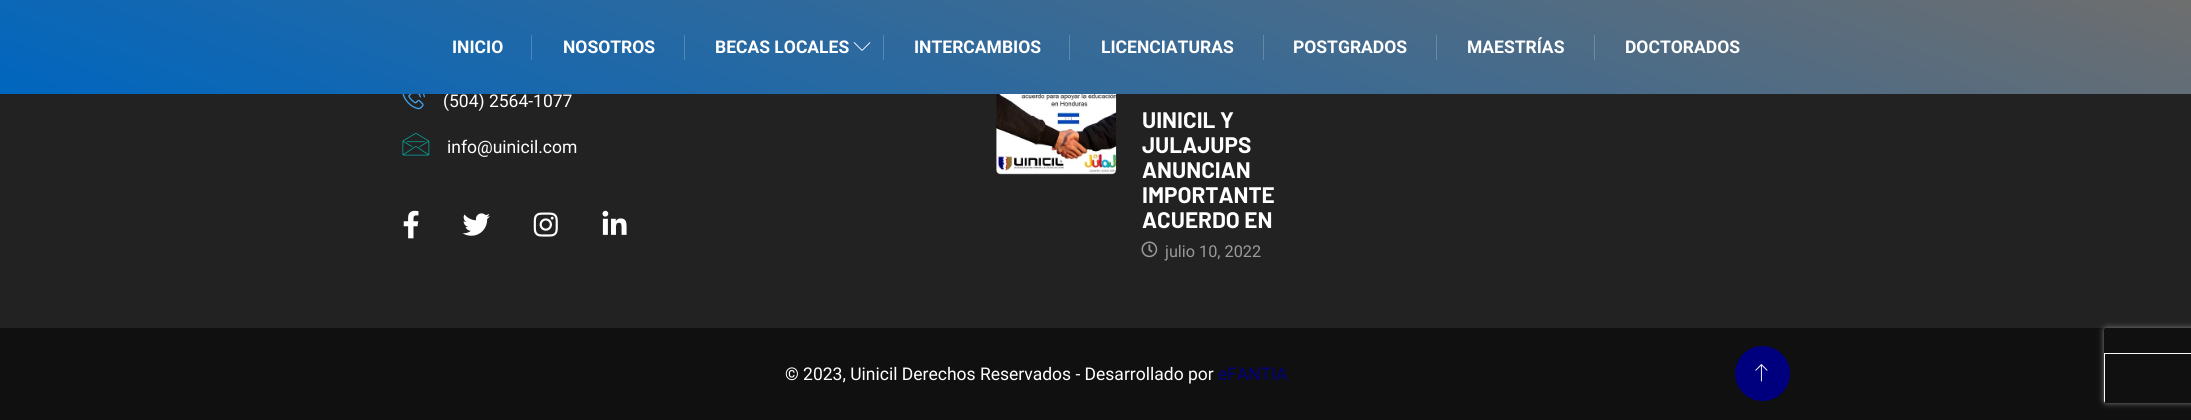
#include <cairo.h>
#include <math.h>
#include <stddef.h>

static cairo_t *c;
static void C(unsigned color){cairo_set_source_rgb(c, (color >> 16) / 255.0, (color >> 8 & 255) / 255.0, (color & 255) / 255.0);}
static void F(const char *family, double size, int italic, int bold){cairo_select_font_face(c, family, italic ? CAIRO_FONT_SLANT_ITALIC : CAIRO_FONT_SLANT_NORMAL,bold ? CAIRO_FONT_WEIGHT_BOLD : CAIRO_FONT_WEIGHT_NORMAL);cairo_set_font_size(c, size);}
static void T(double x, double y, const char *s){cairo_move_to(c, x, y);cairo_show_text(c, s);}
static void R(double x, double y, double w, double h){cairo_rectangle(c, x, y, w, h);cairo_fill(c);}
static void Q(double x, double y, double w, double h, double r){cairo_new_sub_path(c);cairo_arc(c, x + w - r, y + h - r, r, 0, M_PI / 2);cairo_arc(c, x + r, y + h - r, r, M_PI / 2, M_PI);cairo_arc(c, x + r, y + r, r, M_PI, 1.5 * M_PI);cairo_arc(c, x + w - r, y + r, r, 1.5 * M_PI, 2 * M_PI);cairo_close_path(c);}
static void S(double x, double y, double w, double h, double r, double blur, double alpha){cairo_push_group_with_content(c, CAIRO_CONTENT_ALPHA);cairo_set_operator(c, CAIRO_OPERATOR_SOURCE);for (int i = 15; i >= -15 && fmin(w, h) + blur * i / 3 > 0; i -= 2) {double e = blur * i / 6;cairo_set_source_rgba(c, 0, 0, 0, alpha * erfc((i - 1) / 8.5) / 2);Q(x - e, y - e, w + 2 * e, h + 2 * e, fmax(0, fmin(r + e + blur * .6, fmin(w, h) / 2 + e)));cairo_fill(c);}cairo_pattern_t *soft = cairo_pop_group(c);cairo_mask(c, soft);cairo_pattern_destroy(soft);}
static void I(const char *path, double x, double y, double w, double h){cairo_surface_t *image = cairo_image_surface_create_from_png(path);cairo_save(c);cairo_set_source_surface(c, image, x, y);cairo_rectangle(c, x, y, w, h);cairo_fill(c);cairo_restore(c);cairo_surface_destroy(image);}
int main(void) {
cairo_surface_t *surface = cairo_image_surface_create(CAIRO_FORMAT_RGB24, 2191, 420);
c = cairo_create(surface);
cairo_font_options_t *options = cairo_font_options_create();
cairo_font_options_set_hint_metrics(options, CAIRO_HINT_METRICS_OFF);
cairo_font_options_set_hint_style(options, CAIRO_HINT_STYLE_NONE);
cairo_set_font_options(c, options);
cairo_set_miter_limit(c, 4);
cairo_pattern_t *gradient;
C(0x222222);
cairo_paint(c);
F("Roboto",17.5,0,0);
C(0xffffff);
T(443,107,"(504) 2564-1077");
gradient = cairo_pattern_create_linear(952,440,1239,-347);
cairo_pattern_add_color_stop_rgba(gradient,0,0,0.4,0.749,1);
cairo_pattern_add_color_stop_rgba(gradient,1,0.431,0.431,0.431,1);
cairo_set_source(c,gradient);
cairo_pattern_destroy(gradient);
R(0,0,2191,94);
gradient = cairo_pattern_create_linear(952,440,1239,-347);
cairo_pattern_add_color_stop_rgba(gradient,0,0.2,0.522,0.8,1);
cairo_pattern_add_color_stop_rgba(gradient,1,0.545,0.545,0.545,1);
cairo_set_source(c,gradient);
cairo_pattern_destroy(gradient);
R(1594,35,1,25);
R(1436,35,1,25);
R(1263,35,1,25);
R(1069,35,1,25);
R(883,35,1,25);
F("Roboto",17.5,0,1);
C(0xffffff);
T(452,53,"INICIO");
cairo_set_source_rgba(c,1,1,1,0.2);
R(531,35,1,25);
C(0xffffff);
T(563,53,"NOSOTROS");
cairo_set_source_rgba(c,1,1,1,0.2);
R(684,35,1,25);
C(0xffffff);
T(715,53,"BECAS LOCALES");
I("1.png",853,42,18,9);
T(914,53,"INTERCAMBIOS");
T(1101,53,"LICENCIATURAS");
T(1293,53,"POSTGRADOS");
T(1467,53,"MAESTRÍAS");
T(1625,53,"DOCTORADOS");
I("2.png",402,94,23,16);
I("3.png",402,133,28,23);
F("Roboto",17.5,0,0);
T(447,153,"info@uinicil.com");
I("4.png",403,210,16,29);
I("5.png",462,213,28,23);
I("6.png",533,212,25,25);
I("7.png",602,210,25,25);
I("8.png",996,94,121,81);
F("Barlow",22.5,0,1);
T(1142,128,"UINICIL Y");
T(1142,153,"JULAJUPS");
T(1142,178,"ANUNCIAN");
T(1142,203,"IMPORTANTE");
T(1142,228,"ACUERDO EN");
I("9.png",1141,241,17,17);
F("Roboto",16.25,0,0);
C(0x999999);
T(1165,257,"julio 10, 2022");
C(0x101010);
R(0,328,2191,92);
F("Roboto",17.5,0,0);
C(0xffffff);
T(785,380,"© 2023, Uinicil Derechos Reservados - Desarrollado por");
C(0x00007e);
T(1218,380,"eFANTIA");
cairo_new_path(c);
cairo_arc(c,1762.5,373.5,27.5,0,2 * M_PI);
cairo_fill(c);
I("10.png",1755,364,13,18);
cairo_save(c);
cairo_set_fill_rule(c,CAIRO_FILL_RULE_EVEN_ODD);
cairo_new_path(c);
cairo_move_to(c,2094,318);
cairo_line_to(c,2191,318);
cairo_line_to(c,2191,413);
cairo_line_to(c,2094,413);
cairo_close_path(c);
cairo_move_to(c,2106.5,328);
cairo_line_to(c,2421.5,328);
cairo_curve_to(c,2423,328,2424,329,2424,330.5);
cairo_line_to(c,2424,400.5);
cairo_curve_to(c,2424,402,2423,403,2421.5,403);
cairo_line_to(c,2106.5,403);
cairo_curve_to(c,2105,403,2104,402,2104,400.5);
cairo_line_to(c,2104,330.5);
cairo_curve_to(c,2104,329,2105,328,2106.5,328);
cairo_close_path(c);
cairo_clip(c);
C(0x808080);
S(2104,328,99,75,2.5,3,1);
cairo_restore(c);
C(0xfbfbfb);
cairo_new_path(c);
cairo_move_to(c,2105,354);
cairo_line_to(c,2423,354);
cairo_line_to(c,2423,403);
cairo_line_to(c,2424,401);
cairo_line_to(c,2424,353);
cairo_line_to(c,2104,353);
cairo_line_to(c,2104,401);
cairo_line_to(c,2105,403);
cairo_close_path(c);
cairo_fill(c);
cairo_surface_write_to_png(surface, "o.png");
cairo_font_options_destroy(options);
cairo_destroy(c);
cairo_surface_destroy(surface);
return 0;
}
